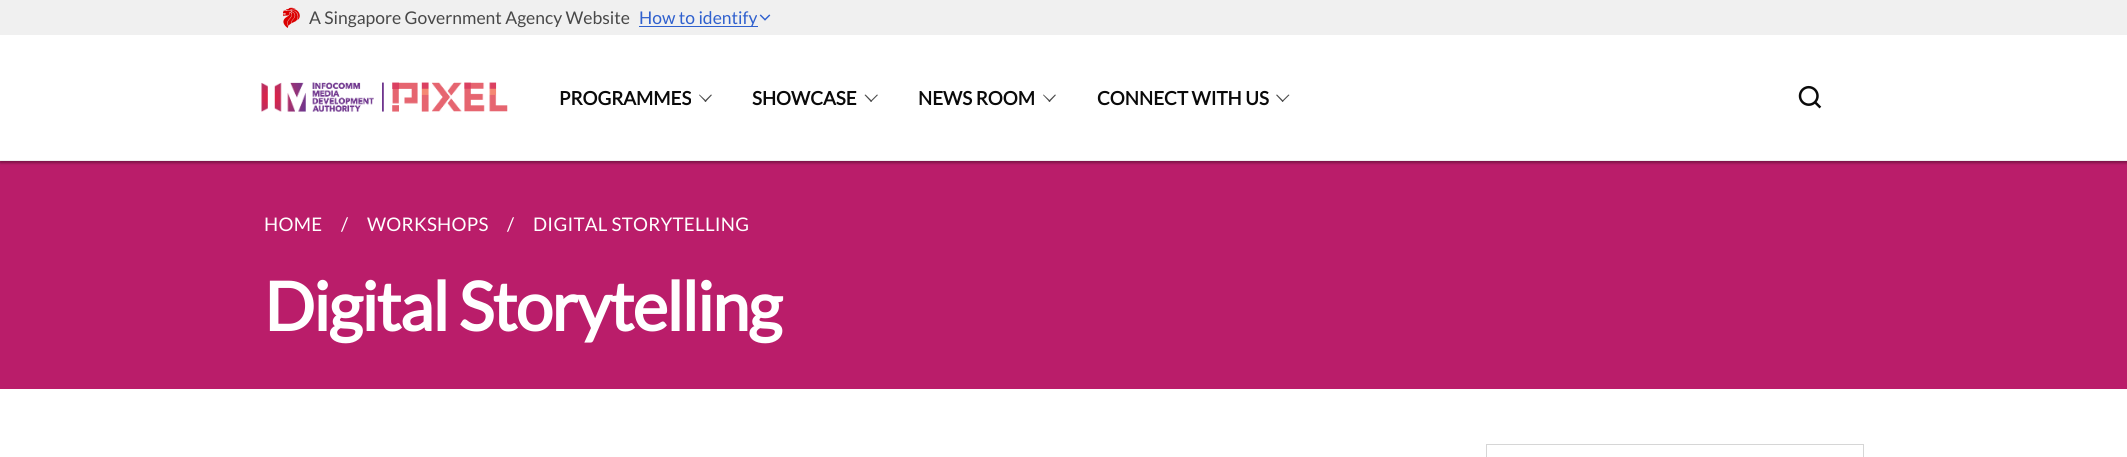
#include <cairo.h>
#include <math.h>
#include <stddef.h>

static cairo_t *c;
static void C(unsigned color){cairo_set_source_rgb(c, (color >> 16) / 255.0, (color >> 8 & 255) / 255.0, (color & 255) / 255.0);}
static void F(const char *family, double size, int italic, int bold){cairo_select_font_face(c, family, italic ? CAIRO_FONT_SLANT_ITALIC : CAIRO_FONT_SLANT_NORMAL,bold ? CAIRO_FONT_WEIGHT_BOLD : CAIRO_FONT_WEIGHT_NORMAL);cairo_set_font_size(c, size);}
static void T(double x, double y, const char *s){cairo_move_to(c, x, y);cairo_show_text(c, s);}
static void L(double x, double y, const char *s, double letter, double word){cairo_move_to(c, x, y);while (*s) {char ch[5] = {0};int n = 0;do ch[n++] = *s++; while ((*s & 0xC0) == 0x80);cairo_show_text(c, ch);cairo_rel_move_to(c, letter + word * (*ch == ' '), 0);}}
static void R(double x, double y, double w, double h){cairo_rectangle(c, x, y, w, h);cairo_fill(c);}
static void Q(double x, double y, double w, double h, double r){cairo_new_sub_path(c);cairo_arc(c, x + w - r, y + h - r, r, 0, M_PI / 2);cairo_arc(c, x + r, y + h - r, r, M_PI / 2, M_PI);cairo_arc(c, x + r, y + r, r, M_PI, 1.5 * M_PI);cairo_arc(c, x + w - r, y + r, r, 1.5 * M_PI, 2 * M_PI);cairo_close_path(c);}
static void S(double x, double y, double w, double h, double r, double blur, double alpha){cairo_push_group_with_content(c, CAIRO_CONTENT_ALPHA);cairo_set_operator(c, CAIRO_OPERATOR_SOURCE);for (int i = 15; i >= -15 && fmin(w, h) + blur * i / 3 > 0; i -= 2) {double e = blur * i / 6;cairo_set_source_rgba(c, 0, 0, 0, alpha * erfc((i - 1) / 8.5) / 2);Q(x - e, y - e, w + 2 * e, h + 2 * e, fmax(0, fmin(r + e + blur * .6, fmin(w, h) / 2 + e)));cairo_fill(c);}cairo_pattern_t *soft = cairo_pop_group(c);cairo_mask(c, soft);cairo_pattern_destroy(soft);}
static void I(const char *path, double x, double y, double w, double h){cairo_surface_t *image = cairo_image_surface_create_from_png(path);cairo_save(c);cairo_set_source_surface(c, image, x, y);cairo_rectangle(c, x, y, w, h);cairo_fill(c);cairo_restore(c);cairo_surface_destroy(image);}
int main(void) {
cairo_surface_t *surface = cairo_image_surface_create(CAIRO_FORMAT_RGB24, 2127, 457);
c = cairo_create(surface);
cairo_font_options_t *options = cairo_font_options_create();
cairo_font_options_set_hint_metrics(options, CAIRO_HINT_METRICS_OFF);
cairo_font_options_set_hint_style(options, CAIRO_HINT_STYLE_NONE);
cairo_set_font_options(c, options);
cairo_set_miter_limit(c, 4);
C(0xffffff);
cairo_paint(c);
C(0xba1d6a);
R(0,161,2127,228);
C(0x000000);
S(0,-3,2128,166,0,1,.24);
S(0,-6,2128,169,0,2,.12);
C(0xf0f0f0);
R(0,0,2127,35);
I("1.png",283,7,17,21);
F("Lato",17.5,0,0);
C(0x484848);
T(309,24,"A Singapore Government Agency Website");
C(0x2f60ce);
R(639,26,119,1);
T(639,24,"How to identify");
I("2.png",759,14,12,7);
C(0xffffff);
R(0,35,2127,125);
C(0xf0f0f0);
R(0,160,2127,1);
I("3.png",261,82,247,30);
F("Lato",18.75,0,1);
C(0x0a0a0a);
T(559,105,"PROGRAMMES");
C(0x484848);
cairo_new_path(c);
cairo_move_to(c,704.5,101);
cairo_line_to(c,711,94.5);
cairo_line_to(c,712,95);
cairo_line_to(c,705.5,102);
cairo_close_path(c);
cairo_fill(c);
cairo_new_path(c);
cairo_move_to(c,699,95);
cairo_line_to(c,699.5,94.5);
cairo_line_to(c,706.5,101);
cairo_line_to(c,705.5,102);
cairo_close_path(c);
cairo_fill(c);
C(0x0a0a0a);
T(752,105,"SHOWCASE");
C(0x484848);
cairo_new_path(c);
cairo_move_to(c,870.5,101);
cairo_line_to(c,877,94.5);
cairo_line_to(c,878,95);
cairo_line_to(c,871,102);
cairo_close_path(c);
cairo_fill(c);
cairo_new_path(c);
cairo_move_to(c,864.5,95);
cairo_line_to(c,865.5,94.5);
cairo_line_to(c,872,101);
cairo_line_to(c,871,102);
cairo_close_path(c);
cairo_fill(c);
C(0x0a0a0a);
T(918,105,"NEWS ROOM");
C(0x484848);
cairo_new_path(c);
cairo_move_to(c,1048.5,101);
cairo_line_to(c,1055,94.5);
cairo_line_to(c,1056,95);
cairo_line_to(c,1049.5,102);
cairo_close_path(c);
cairo_fill(c);
cairo_new_path(c);
cairo_move_to(c,1043,95);
cairo_line_to(c,1043.5,94.5);
cairo_line_to(c,1050.5,101);
cairo_line_to(c,1049.5,102);
cairo_close_path(c);
cairo_fill(c);
C(0x0a0a0a);
T(1097,105,"CONNECT WITH US");
C(0x484848);
cairo_new_path(c);
cairo_move_to(c,1282,101);
cairo_line_to(c,1288.5,94.5);
cairo_line_to(c,1289.5,95);
cairo_line_to(c,1282.5,102);
cairo_close_path(c);
cairo_fill(c);
cairo_new_path(c);
cairo_move_to(c,1276,95);
cairo_line_to(c,1277,94.5);
cairo_line_to(c,1283.5,101);
cairo_line_to(c,1282.5,102);
cairo_close_path(c);
cairo_fill(c);
I("4.png",1798,85,24,24);
F("Lato",18.75,0,0);
C(0xffffff);
L(264,231,"HOME",.25,0);
T(341,231,"/");
L(367,231,"WORKSHOPS",.25,0);
T(507,231,"/");
L(533,231,"DIGITAL STORYTELLING",.25,0);
F("Lato",67.5,0,1);
L(264,331,"Digital Storytelling",-1.9,0);
cairo_rectangle(c,1486.5,444.5,377,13);
C(0xd6d6d6);
cairo_set_line_width(c,1);
cairo_stroke(c);
cairo_surface_write_to_png(surface, "o.png");
cairo_font_options_destroy(options);
cairo_destroy(c);
cairo_surface_destroy(surface);
return 0;
}
